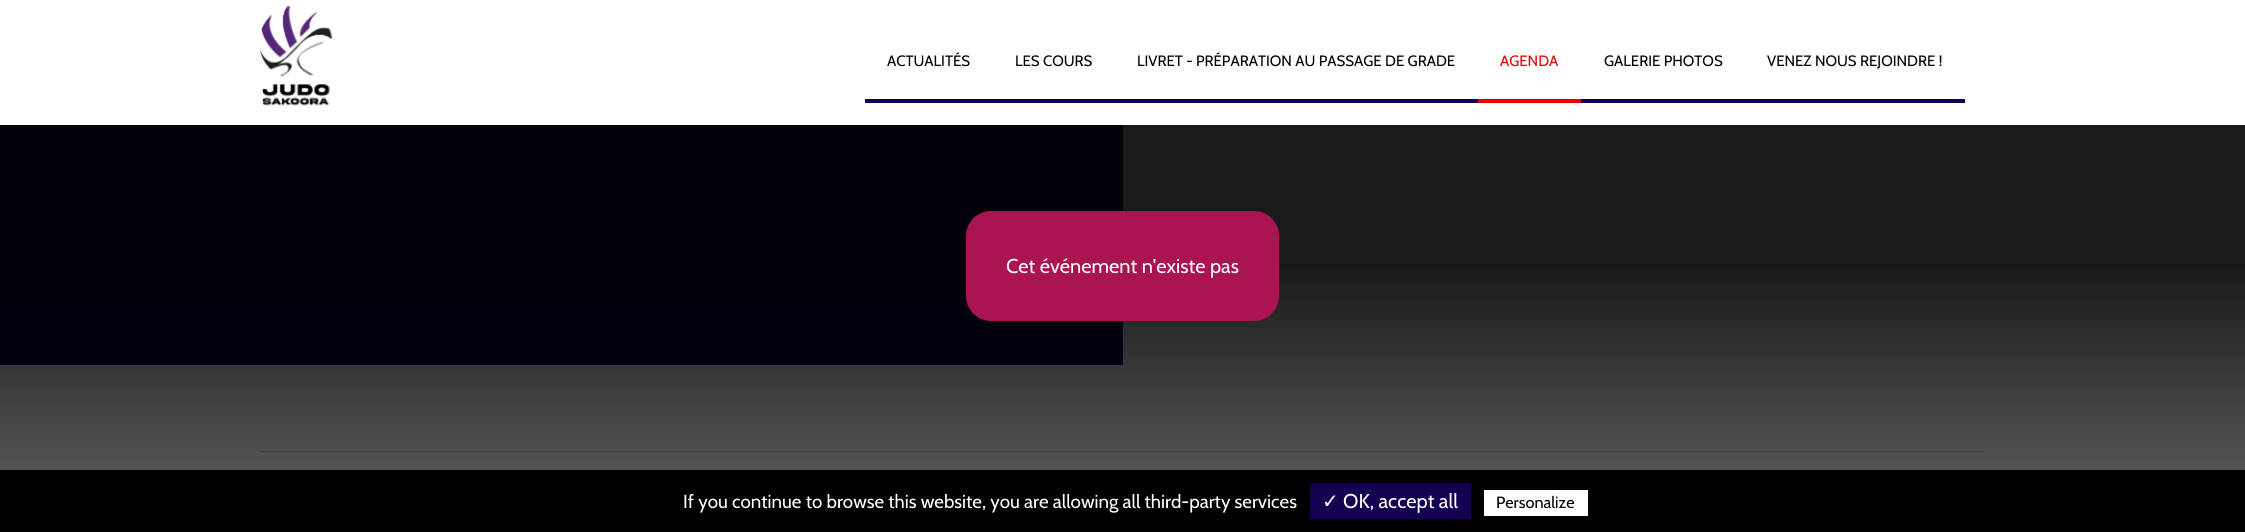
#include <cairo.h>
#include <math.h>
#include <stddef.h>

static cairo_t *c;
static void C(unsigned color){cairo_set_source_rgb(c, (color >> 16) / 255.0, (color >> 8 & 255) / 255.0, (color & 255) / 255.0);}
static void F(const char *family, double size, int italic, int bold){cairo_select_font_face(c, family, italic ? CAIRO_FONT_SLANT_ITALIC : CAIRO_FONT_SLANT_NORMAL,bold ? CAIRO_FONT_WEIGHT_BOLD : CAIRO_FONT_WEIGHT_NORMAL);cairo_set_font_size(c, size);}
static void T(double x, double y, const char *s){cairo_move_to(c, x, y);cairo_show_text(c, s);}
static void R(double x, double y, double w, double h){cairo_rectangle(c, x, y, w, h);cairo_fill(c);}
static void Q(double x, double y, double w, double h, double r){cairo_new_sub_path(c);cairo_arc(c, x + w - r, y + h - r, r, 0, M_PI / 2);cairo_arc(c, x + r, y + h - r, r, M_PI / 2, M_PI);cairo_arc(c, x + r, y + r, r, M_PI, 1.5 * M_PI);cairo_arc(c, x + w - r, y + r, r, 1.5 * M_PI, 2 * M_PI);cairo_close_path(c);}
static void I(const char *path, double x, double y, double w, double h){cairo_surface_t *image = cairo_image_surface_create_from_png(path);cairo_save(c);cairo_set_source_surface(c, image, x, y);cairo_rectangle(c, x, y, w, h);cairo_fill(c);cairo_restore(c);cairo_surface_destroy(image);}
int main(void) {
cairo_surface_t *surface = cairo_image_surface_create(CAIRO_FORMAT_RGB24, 2245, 532);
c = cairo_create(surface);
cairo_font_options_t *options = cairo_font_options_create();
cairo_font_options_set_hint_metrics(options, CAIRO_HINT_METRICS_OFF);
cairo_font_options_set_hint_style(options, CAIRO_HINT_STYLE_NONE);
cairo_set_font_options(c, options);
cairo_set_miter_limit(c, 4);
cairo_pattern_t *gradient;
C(0xffffff);
cairo_paint(c);
I("1.png",260,6,73,100);
C(0x140051);
R(865,99,613,4);
F("Cabin",15,0,0);
C(0x000000);
T(887,66,"ACTUALITÉS");
T(1015,66,"LES COURS");
T(1137,66,"LIVRET - PRÉPARATION AU PASSAGE DE GRADE");
C(0xe90000);
R(1478,99,103,4);
T(1500,66,"AGENDA");
C(0x140051);
R(1581,99,384,4);
C(0x000000);
T(1604,66,"GALERIE PHOTOS");
T(1767,66,"VENEZ NOUS REJOINDRE !");
C(0x140051);
R(0,125,1123,240);
C(0xcccccc);
R(260,451,1725,1);
gradient = cairo_pattern_create_linear(1123,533,1123,0);
cairo_pattern_add_color_stop_rgba(gradient,0,0,0,0,.6);
cairo_pattern_add_color_stop_rgba(gradient,.5,0,0,0,.9);
cairo_set_source(c,gradient);
cairo_pattern_destroy(gradient);
R(0,125,2245,345);
C(0xaa1451);
Q(966,211,313,110,25);
cairo_fill(c);
F("Cabin",20,0,0);
C(0xffffff);
T(1006,273,"Cet événement n'existe pas");
C(0x000000);
R(0,470,2245,62);
F("Cabin",18.75,0,0);
C(0xffffff);
T(683,508,"If you continue to browse this website, you are allowing all third-party services");
C(0x140051);
R(1310,483,161,36);
F("DejaVu Sans",20,0,0);
C(0xffffff);
T(1322,508,"✓");
F("Cabin",20,0,0);
T(1343,508,"OK, accept all");
R(1484,490,104,26);
F("Cabin",16.25,0,0);
C(0x000000);
T(1496,508,"Personalize");
cairo_surface_write_to_png(surface, "o.png");
cairo_font_options_destroy(options);
cairo_destroy(c);
cairo_surface_destroy(surface);
return 0;
}
